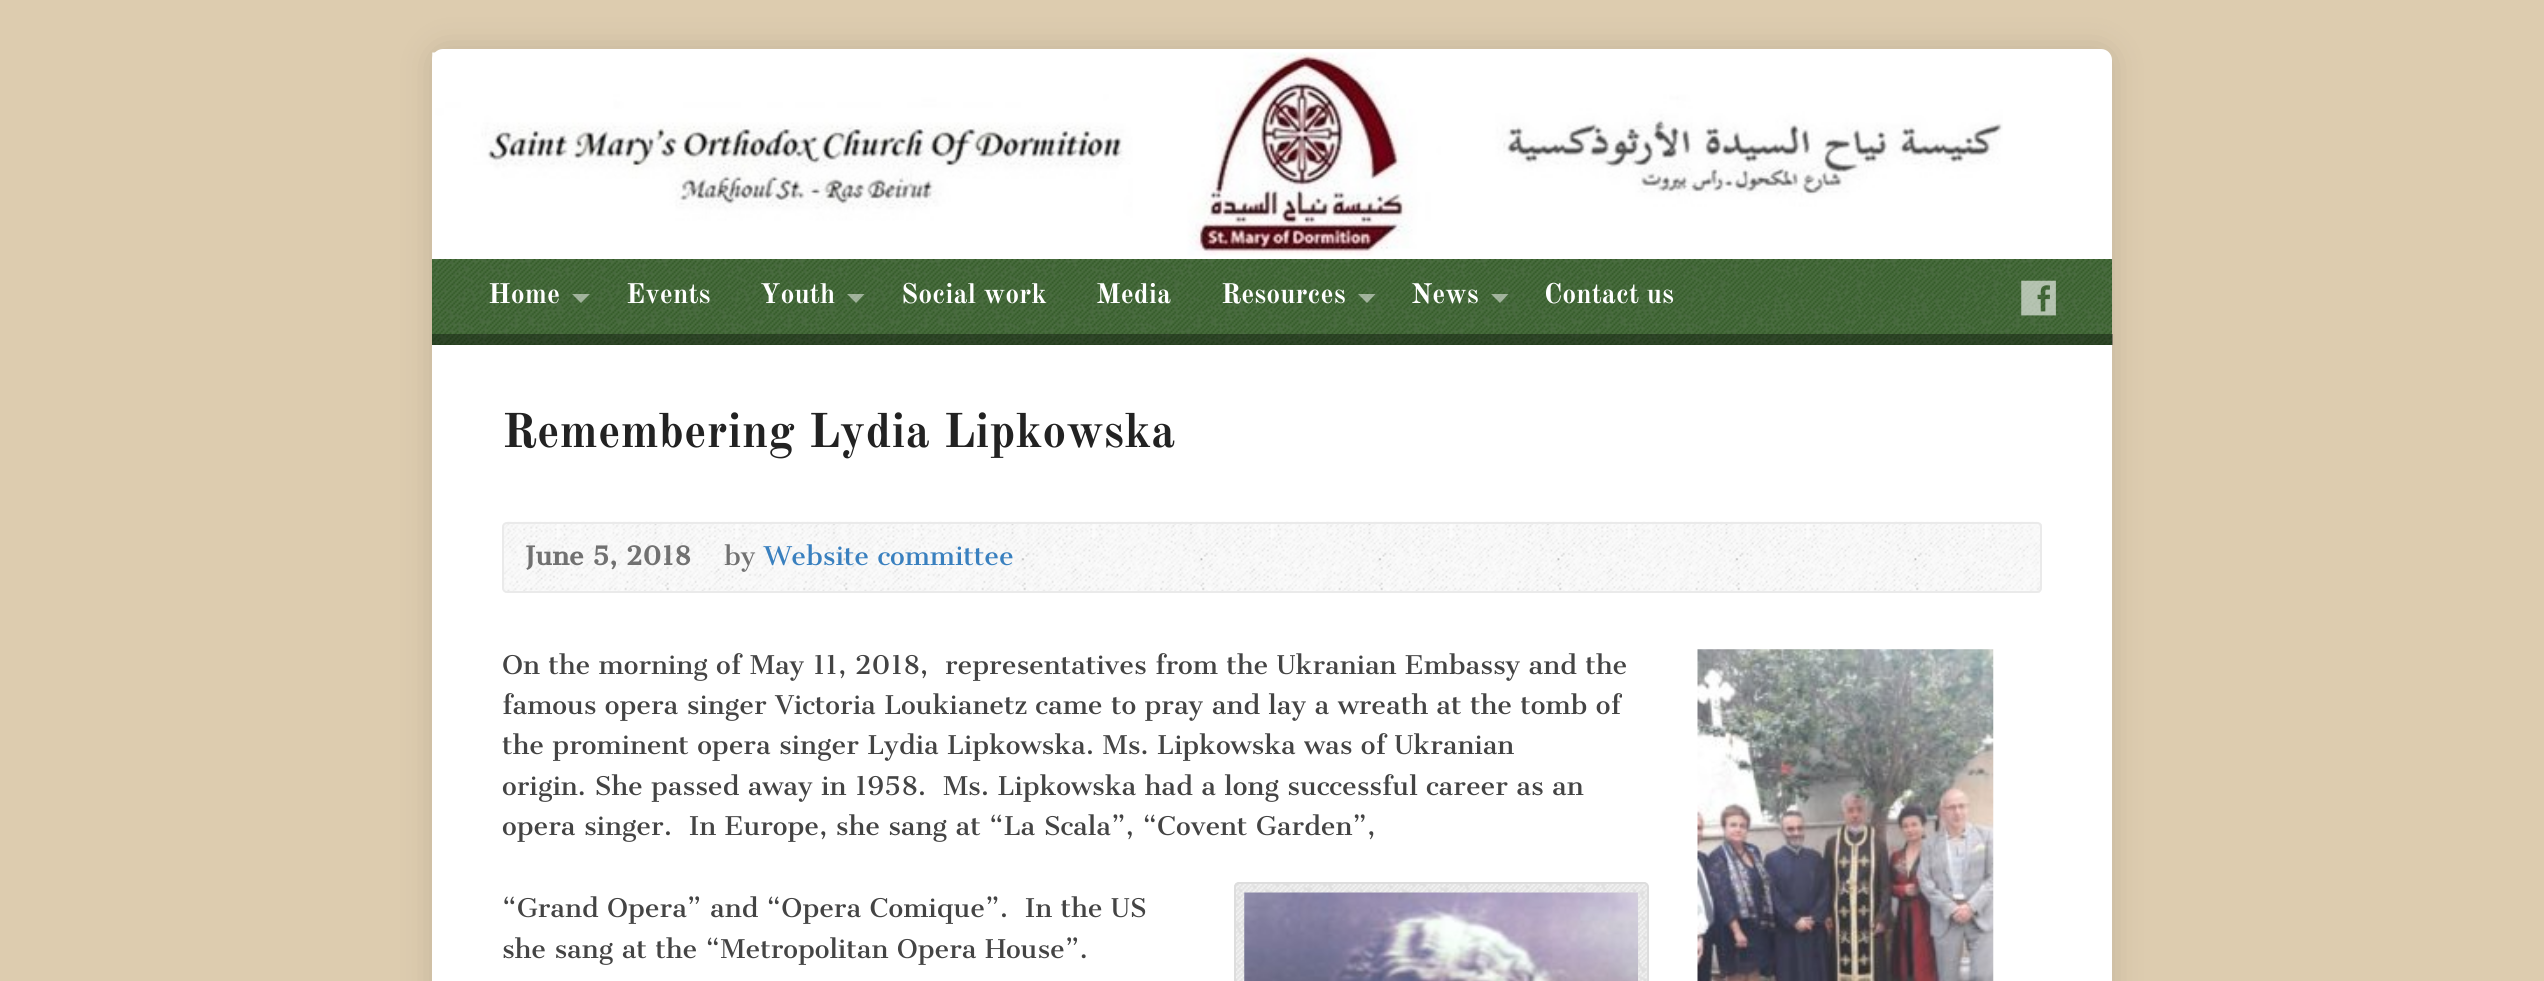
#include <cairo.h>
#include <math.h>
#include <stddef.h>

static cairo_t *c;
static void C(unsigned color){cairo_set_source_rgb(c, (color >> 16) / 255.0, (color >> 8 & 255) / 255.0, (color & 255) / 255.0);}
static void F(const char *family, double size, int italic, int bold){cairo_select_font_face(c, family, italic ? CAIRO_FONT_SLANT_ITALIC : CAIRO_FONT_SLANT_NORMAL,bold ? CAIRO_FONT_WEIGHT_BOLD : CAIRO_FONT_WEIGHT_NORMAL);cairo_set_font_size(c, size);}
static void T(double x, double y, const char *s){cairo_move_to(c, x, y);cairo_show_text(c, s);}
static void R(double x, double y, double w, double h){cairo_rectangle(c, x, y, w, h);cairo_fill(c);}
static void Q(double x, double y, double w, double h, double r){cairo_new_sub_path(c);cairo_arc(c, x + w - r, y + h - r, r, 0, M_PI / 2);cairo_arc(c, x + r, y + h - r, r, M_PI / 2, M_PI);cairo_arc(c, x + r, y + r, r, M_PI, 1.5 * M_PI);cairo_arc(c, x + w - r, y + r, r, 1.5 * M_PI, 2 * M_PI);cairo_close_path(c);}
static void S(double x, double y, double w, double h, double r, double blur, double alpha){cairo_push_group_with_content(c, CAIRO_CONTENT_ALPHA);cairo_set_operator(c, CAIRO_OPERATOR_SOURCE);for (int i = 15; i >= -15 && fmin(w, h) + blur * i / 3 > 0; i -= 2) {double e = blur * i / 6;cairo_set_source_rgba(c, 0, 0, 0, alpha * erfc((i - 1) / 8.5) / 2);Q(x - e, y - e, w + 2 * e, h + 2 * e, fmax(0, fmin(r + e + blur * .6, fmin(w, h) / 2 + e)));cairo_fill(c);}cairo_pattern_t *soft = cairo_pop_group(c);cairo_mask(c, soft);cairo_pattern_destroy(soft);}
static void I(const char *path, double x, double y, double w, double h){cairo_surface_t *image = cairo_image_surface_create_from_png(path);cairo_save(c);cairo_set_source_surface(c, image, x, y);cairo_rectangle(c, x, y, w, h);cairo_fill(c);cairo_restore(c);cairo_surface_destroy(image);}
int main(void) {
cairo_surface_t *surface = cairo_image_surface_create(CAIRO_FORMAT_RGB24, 2544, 981);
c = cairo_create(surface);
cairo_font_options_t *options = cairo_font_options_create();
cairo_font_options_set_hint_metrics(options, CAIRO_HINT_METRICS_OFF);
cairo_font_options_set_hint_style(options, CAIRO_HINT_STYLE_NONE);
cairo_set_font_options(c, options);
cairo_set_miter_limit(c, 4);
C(0xddccaf);
cairo_paint(c);
C(0x000000);
S(432,49,1680,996,11,17.5,.12);
C(0xffffff);
Q(432,49,1680,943,11);
cairo_fill(c);
I("1.png",432,52,1571,204);
C(0x315e24);
R(432,259,1680,86);
I("2.png",432,259,1681,86);
F("Old Standard TT",27.75,0,1);
C(0xffffff);
T(488,303,"Home");
cairo_set_source_rgba(c,1,1,1,0.5);
cairo_new_path(c);
cairo_move_to(c,572,294);
cairo_line_to(c,590,294);
cairo_line_to(c,581,303);
cairo_close_path(c);
cairo_fill(c);
C(0xffffff);
T(626,303,"Events");
T(760,303,"Youth");
cairo_set_source_rgba(c,1,1,1,0.5);
cairo_new_path(c);
cairo_move_to(c,847,294);
cairo_line_to(c,864.5,294);
cairo_line_to(c,856,303);
cairo_close_path(c);
cairo_fill(c);
C(0xffffff);
T(901,303,"Social work");
T(1096,303,"Media");
T(1221,303,"Resources");
cairo_set_source_rgba(c,1,1,1,0.5);
cairo_new_path(c);
cairo_move_to(c,1358,294);
cairo_line_to(c,1375.5,294);
cairo_line_to(c,1367,303);
cairo_close_path(c);
cairo_fill(c);
C(0xffffff);
T(1411,303,"News");
cairo_set_source_rgba(c,1,1,1,0.5);
cairo_new_path(c);
cairo_move_to(c,1491,294);
cairo_line_to(c,1508.5,294);
cairo_line_to(c,1500,303);
cairo_close_path(c);
cairo_fill(c);
C(0xffffff);
T(1544,303,"Contact us");
I("3.png",2021,280,35,36);
cairo_set_source_rgba(c,0,0,0,0.35);
R(432,334,1681,11);
F("Old Standard TT",47.9,0,1);
C(0x222222);
T(502,447,"Remembering Lydia Lipkowska");
I("4.png",502,521,1540,72);
Q(503,523,1538,69,4);
C(0xeaeaea);
cairo_stroke(c);
F("Cantata One",25.2,0,1);
C(0x717171);
T(525,565,"June 5, 2018");
F("Cantata One",25.2,0,0);
T(724,565,"by");
C(0x3980bf);
T(764,565,"Website committee");
C(0x444444);
T(502,674,"On the morning of May 11, 2018,  representatives from the Ukranian Embassy and the");
I("5.png",1697,649,297,332);
T(502,714,"famous opera singer Victoria Loukianetz came to pray and lay a wreath at the tomb of");
T(502,754,"the prominent opera singer Lydia Lipkowska. Ms. Lipkowska was of Ukranian");
T(502,795,"origin. She passed away in 1958.  Ms. Lipkowska had a long successful career as an");
T(502,835,"opera singer.  In Europe, she sang at “La Scala”, “Covent Garden”,");
T(502,917,"“Grand Opera” and “Opera Comique”.  In the US");
T(502,958,"she sang at the “Metropolitan Opera House”.");
I("6.png",1234,882,415,99);
Q(1235,883,413,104,4);
C(0xdddddd);
cairo_stroke(c);
I("7.png",1244,892,394,89);
cairo_surface_write_to_png(surface, "o.png");
cairo_font_options_destroy(options);
cairo_destroy(c);
cairo_surface_destroy(surface);
return 0;
}
